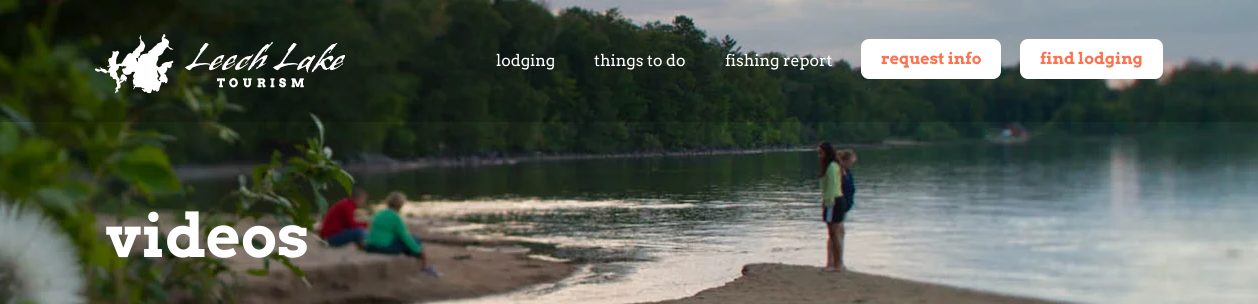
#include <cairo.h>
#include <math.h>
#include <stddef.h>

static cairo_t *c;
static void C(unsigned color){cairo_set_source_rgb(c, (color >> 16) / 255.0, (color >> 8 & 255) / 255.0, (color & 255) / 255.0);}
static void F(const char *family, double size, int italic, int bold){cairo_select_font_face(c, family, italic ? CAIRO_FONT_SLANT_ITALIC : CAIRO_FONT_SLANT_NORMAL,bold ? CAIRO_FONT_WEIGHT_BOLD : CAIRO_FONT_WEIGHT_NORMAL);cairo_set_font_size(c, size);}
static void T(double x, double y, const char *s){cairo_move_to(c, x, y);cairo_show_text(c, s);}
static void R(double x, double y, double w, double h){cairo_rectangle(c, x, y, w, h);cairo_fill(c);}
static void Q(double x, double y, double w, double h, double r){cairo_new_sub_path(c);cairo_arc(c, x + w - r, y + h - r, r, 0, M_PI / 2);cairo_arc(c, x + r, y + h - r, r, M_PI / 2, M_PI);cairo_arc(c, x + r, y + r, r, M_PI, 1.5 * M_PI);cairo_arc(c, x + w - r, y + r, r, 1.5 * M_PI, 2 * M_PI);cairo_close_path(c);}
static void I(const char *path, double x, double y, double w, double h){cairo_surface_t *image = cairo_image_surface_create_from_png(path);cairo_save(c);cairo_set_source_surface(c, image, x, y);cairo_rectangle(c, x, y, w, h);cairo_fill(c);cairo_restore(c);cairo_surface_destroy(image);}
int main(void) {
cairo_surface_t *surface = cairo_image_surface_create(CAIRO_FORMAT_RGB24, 1258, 304);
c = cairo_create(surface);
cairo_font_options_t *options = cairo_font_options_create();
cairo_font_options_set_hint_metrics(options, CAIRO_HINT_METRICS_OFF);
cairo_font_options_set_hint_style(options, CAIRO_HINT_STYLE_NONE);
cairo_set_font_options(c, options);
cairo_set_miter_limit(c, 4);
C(0xffffff);
cairo_paint(c);
I("2.png",0,0,1258,304);
cairo_set_source_rgba(c,0,0,0,0.2);
R(0,0,1258,122);
I("1.png",95,34,250,60);
F("Arvo",16,0,0);
C(0xffffff);
T(496,66,"lodging");
T(594,66,"things to do");
T(725,66,"fishing report");
Q(861,39,140,40,8);
cairo_fill(c);
F("Arvo",16,0,1);
C(0xfd724f);
T(881,64,"request info");
C(0xffffff);
Q(1020,39,143,40,8);
cairo_fill(c);
C(0xfd724f);
T(1040,64,"find lodging");
F("Arvo",60,0,1);
C(0xffffff);
T(105,257,"videos");
cairo_surface_write_to_png(surface, "o.png");
cairo_font_options_destroy(options);
cairo_destroy(c);
cairo_surface_destroy(surface);
return 0;
}
